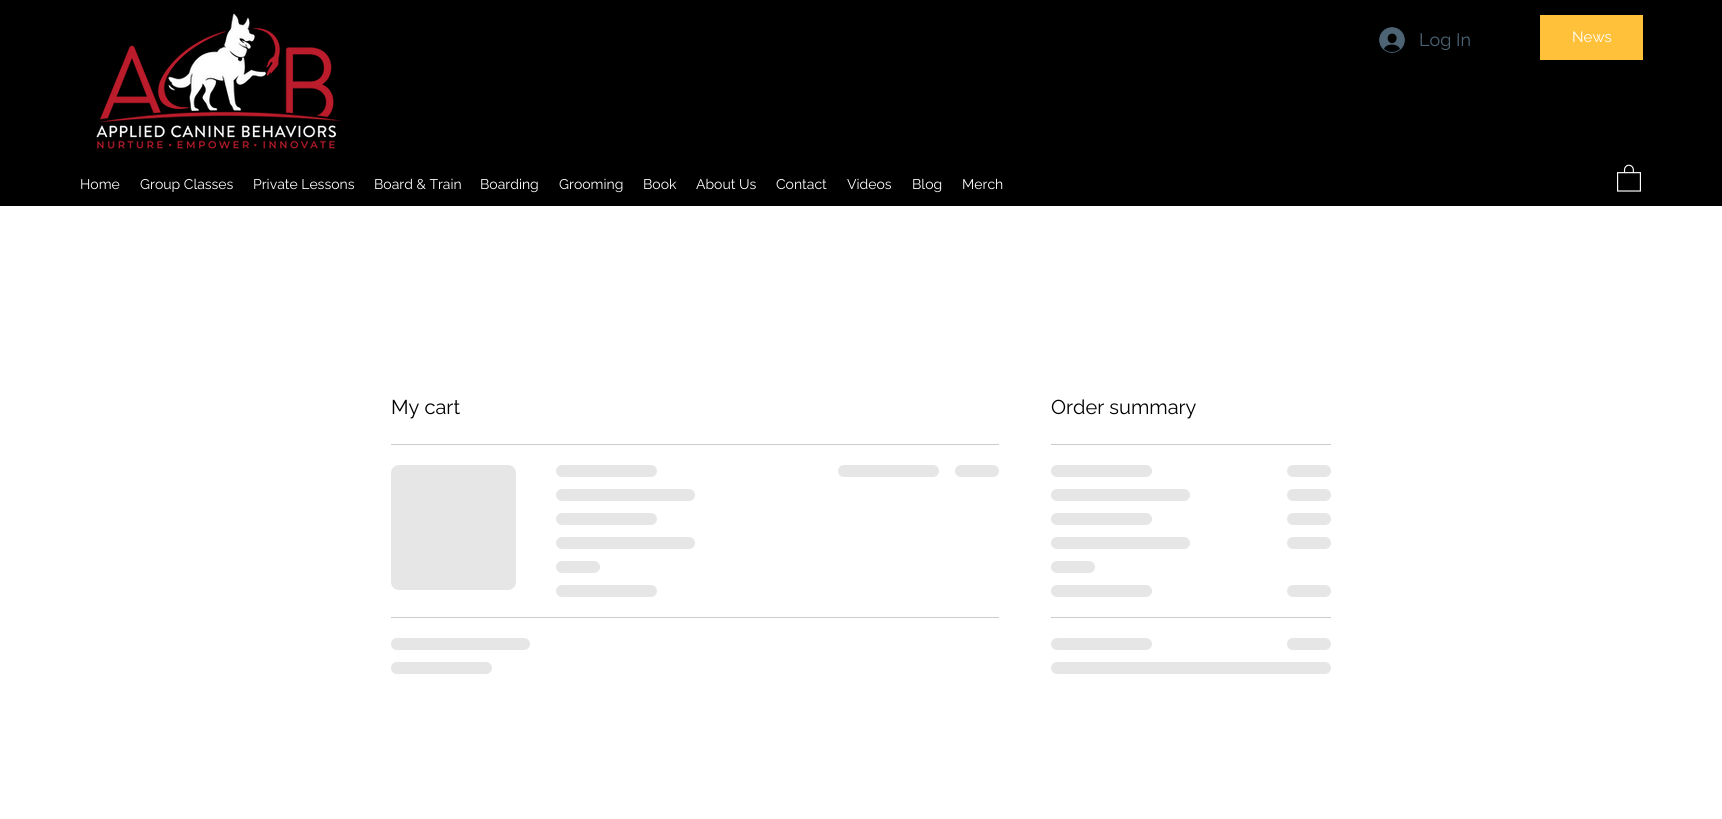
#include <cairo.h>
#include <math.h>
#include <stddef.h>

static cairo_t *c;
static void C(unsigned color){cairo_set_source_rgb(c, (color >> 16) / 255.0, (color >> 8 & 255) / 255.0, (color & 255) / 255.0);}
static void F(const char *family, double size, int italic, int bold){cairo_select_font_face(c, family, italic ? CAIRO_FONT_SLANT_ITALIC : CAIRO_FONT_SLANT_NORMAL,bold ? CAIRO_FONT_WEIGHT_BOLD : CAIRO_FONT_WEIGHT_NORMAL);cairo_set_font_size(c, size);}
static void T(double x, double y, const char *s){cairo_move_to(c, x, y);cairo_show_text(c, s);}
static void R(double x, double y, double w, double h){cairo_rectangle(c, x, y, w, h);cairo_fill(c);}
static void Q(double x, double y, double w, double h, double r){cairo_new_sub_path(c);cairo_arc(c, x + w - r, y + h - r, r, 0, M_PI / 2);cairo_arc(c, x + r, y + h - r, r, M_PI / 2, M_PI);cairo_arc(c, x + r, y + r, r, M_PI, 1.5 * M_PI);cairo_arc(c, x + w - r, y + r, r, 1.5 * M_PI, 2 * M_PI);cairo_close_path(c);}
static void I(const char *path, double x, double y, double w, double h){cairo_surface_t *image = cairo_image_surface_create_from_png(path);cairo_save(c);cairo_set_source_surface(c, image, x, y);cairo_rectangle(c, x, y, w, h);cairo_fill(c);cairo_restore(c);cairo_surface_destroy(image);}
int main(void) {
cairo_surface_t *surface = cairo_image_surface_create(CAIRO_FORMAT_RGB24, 1722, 819);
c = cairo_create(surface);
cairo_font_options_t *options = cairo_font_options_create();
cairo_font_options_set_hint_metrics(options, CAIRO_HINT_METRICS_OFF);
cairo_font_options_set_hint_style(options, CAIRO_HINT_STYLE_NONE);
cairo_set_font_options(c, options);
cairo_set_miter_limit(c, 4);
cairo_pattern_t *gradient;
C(0xffffff);
cairo_paint(c);
C(0x000000);
R(0,0,1722,206);
I("1.png",96,13,245,136);
I("2.png",1379,27,26,26);
F("Raleway",18,0,0);
C(0x4c6474);
T(1419,46,"Log In");
C(0xffc03a);
R(1540,15,103,45);
F("Raleway",15,0,0);
C(0xffffff);
T(1572,42,"News");
F("Raleway",14,0,0);
T(80,189,"Home");
T(140,189,"Group Classes");
T(253,189,"Private Lessons");
T(374,189,"Board & Train");
T(480,189,"Boarding");
T(559,189,"Grooming");
T(643,189,"Book");
T(696,189,"About Us");
T(776,189,"Contact");
T(847,189,"Videos");
T(912,189,"Blog");
T(962,189,"Merch");
I("3.png",1617,164,24,28);
C(0xcccccc);
R(391,444,608,1);
F("Raleway",20,0,0);
C(0x000000);
T(391,414,"My cart");
gradient = cairo_pattern_create_linear(391,528,891,528);
cairo_pattern_add_color_stop_rgba(gradient,.25,0.902,0.902,0.902,1);
cairo_pattern_add_color_stop_rgba(gradient,.37,0.8,0.8,0.8,1);
cairo_pattern_add_color_stop_rgba(gradient,.63,0.902,0.902,0.902,1);
cairo_set_source(c,gradient);
cairo_pattern_destroy(gradient);
Q(391,465,125,125,8);
cairo_fill(c);
gradient = cairo_pattern_create_linear(556,471,960,471);
cairo_pattern_add_color_stop_rgba(gradient,.25,0.902,0.902,0.902,1);
cairo_pattern_add_color_stop_rgba(gradient,.37,0.8,0.8,0.8,1);
cairo_pattern_add_color_stop_rgba(gradient,.63,0.902,0.902,0.902,1);
cairo_set_source(c,gradient);
cairo_pattern_destroy(gradient);
Q(556,465,101,12,6);
cairo_fill(c);
gradient = cairo_pattern_create_linear(556,495,1112,495);
cairo_pattern_add_color_stop_rgba(gradient,.25,0.902,0.902,0.902,1);
cairo_pattern_add_color_stop_rgba(gradient,.37,0.8,0.8,0.8,1);
cairo_pattern_add_color_stop_rgba(gradient,.63,0.902,0.902,0.902,1);
cairo_set_source(c,gradient);
cairo_pattern_destroy(gradient);
Q(556,489,139,12,6);
cairo_fill(c);
gradient = cairo_pattern_create_linear(556,519,960,519);
cairo_pattern_add_color_stop_rgba(gradient,.25,0.902,0.902,0.902,1);
cairo_pattern_add_color_stop_rgba(gradient,.37,0.8,0.8,0.8,1);
cairo_pattern_add_color_stop_rgba(gradient,.63,0.902,0.902,0.902,1);
cairo_set_source(c,gradient);
cairo_pattern_destroy(gradient);
Q(556,513,101,12,6);
cairo_fill(c);
gradient = cairo_pattern_create_linear(556,543,1112,543);
cairo_pattern_add_color_stop_rgba(gradient,.25,0.902,0.902,0.902,1);
cairo_pattern_add_color_stop_rgba(gradient,.37,0.8,0.8,0.8,1);
cairo_pattern_add_color_stop_rgba(gradient,.63,0.902,0.902,0.902,1);
cairo_set_source(c,gradient);
cairo_pattern_destroy(gradient);
Q(556,537,139,12,6);
cairo_fill(c);
gradient = cairo_pattern_create_linear(556,567,732,567);
cairo_pattern_add_color_stop_rgba(gradient,.25,0.902,0.902,0.902,1);
cairo_pattern_add_color_stop_rgba(gradient,.37,0.8,0.8,0.8,1);
cairo_pattern_add_color_stop_rgba(gradient,.63,0.902,0.902,0.902,1);
cairo_set_source(c,gradient);
cairo_pattern_destroy(gradient);
Q(556,561,44,12,6);
cairo_fill(c);
gradient = cairo_pattern_create_linear(556,591,960,591);
cairo_pattern_add_color_stop_rgba(gradient,.25,0.902,0.902,0.902,1);
cairo_pattern_add_color_stop_rgba(gradient,.37,0.8,0.8,0.8,1);
cairo_pattern_add_color_stop_rgba(gradient,.63,0.902,0.902,0.902,1);
cairo_set_source(c,gradient);
cairo_pattern_destroy(gradient);
Q(556,585,101,12,6);
cairo_fill(c);
gradient = cairo_pattern_create_linear(838,471,1242,471);
cairo_pattern_add_color_stop_rgba(gradient,.25,0.902,0.902,0.902,1);
cairo_pattern_add_color_stop_rgba(gradient,.37,0.8,0.8,0.8,1);
cairo_pattern_add_color_stop_rgba(gradient,.63,0.902,0.902,0.902,1);
cairo_set_source(c,gradient);
cairo_pattern_destroy(gradient);
Q(838,465,101,12,6);
cairo_fill(c);
gradient = cairo_pattern_create_linear(955,471,1131,471);
cairo_pattern_add_color_stop_rgba(gradient,.25,0.902,0.902,0.902,1);
cairo_pattern_add_color_stop_rgba(gradient,.37,0.8,0.8,0.8,1);
cairo_pattern_add_color_stop_rgba(gradient,.63,0.902,0.902,0.902,1);
cairo_set_source(c,gradient);
cairo_pattern_destroy(gradient);
Q(955,465,44,12,6);
cairo_fill(c);
C(0xcccccc);
R(391,617,608,1);
gradient = cairo_pattern_create_linear(391,644,947,644);
cairo_pattern_add_color_stop_rgba(gradient,.25,0.902,0.902,0.902,1);
cairo_pattern_add_color_stop_rgba(gradient,.37,0.8,0.8,0.8,1);
cairo_pattern_add_color_stop_rgba(gradient,.63,0.902,0.902,0.902,1);
cairo_set_source(c,gradient);
cairo_pattern_destroy(gradient);
Q(391,638,139,12,6);
cairo_fill(c);
gradient = cairo_pattern_create_linear(391,668,795,668);
cairo_pattern_add_color_stop_rgba(gradient,.25,0.902,0.902,0.902,1);
cairo_pattern_add_color_stop_rgba(gradient,.37,0.8,0.8,0.8,1);
cairo_pattern_add_color_stop_rgba(gradient,.63,0.902,0.902,0.902,1);
cairo_set_source(c,gradient);
cairo_pattern_destroy(gradient);
Q(391,662,101,12,6);
cairo_fill(c);
C(0xcccccc);
R(1051,444,280,1);
C(0x000000);
T(1051,414,"Order summary");
gradient = cairo_pattern_create_linear(1051,471,1455,471);
cairo_pattern_add_color_stop_rgba(gradient,.25,0.902,0.902,0.902,1);
cairo_pattern_add_color_stop_rgba(gradient,.37,0.8,0.8,0.8,1);
cairo_pattern_add_color_stop_rgba(gradient,.63,0.902,0.902,0.902,1);
cairo_set_source(c,gradient);
cairo_pattern_destroy(gradient);
Q(1051,465,101,12,6);
cairo_fill(c);
gradient = cairo_pattern_create_linear(1287,471,1463,471);
cairo_pattern_add_color_stop_rgba(gradient,.25,0.902,0.902,0.902,1);
cairo_pattern_add_color_stop_rgba(gradient,.37,0.8,0.8,0.8,1);
cairo_pattern_add_color_stop_rgba(gradient,.63,0.902,0.902,0.902,1);
cairo_set_source(c,gradient);
cairo_pattern_destroy(gradient);
Q(1287,465,44,12,6);
cairo_fill(c);
gradient = cairo_pattern_create_linear(1051,495,1607,495);
cairo_pattern_add_color_stop_rgba(gradient,.25,0.902,0.902,0.902,1);
cairo_pattern_add_color_stop_rgba(gradient,.37,0.8,0.8,0.8,1);
cairo_pattern_add_color_stop_rgba(gradient,.63,0.902,0.902,0.902,1);
cairo_set_source(c,gradient);
cairo_pattern_destroy(gradient);
Q(1051,489,139,12,6);
cairo_fill(c);
gradient = cairo_pattern_create_linear(1287,495,1463,495);
cairo_pattern_add_color_stop_rgba(gradient,.25,0.902,0.902,0.902,1);
cairo_pattern_add_color_stop_rgba(gradient,.37,0.8,0.8,0.8,1);
cairo_pattern_add_color_stop_rgba(gradient,.63,0.902,0.902,0.902,1);
cairo_set_source(c,gradient);
cairo_pattern_destroy(gradient);
Q(1287,489,44,12,6);
cairo_fill(c);
gradient = cairo_pattern_create_linear(1051,519,1455,519);
cairo_pattern_add_color_stop_rgba(gradient,.25,0.902,0.902,0.902,1);
cairo_pattern_add_color_stop_rgba(gradient,.37,0.8,0.8,0.8,1);
cairo_pattern_add_color_stop_rgba(gradient,.63,0.902,0.902,0.902,1);
cairo_set_source(c,gradient);
cairo_pattern_destroy(gradient);
Q(1051,513,101,12,6);
cairo_fill(c);
gradient = cairo_pattern_create_linear(1287,519,1463,519);
cairo_pattern_add_color_stop_rgba(gradient,.25,0.902,0.902,0.902,1);
cairo_pattern_add_color_stop_rgba(gradient,.37,0.8,0.8,0.8,1);
cairo_pattern_add_color_stop_rgba(gradient,.63,0.902,0.902,0.902,1);
cairo_set_source(c,gradient);
cairo_pattern_destroy(gradient);
Q(1287,513,44,12,6);
cairo_fill(c);
gradient = cairo_pattern_create_linear(1051,543,1607,543);
cairo_pattern_add_color_stop_rgba(gradient,.25,0.902,0.902,0.902,1);
cairo_pattern_add_color_stop_rgba(gradient,.37,0.8,0.8,0.8,1);
cairo_pattern_add_color_stop_rgba(gradient,.63,0.902,0.902,0.902,1);
cairo_set_source(c,gradient);
cairo_pattern_destroy(gradient);
Q(1051,537,139,12,6);
cairo_fill(c);
gradient = cairo_pattern_create_linear(1287,543,1463,543);
cairo_pattern_add_color_stop_rgba(gradient,.25,0.902,0.902,0.902,1);
cairo_pattern_add_color_stop_rgba(gradient,.37,0.8,0.8,0.8,1);
cairo_pattern_add_color_stop_rgba(gradient,.63,0.902,0.902,0.902,1);
cairo_set_source(c,gradient);
cairo_pattern_destroy(gradient);
Q(1287,537,44,12,6);
cairo_fill(c);
gradient = cairo_pattern_create_linear(1051,567,1227,567);
cairo_pattern_add_color_stop_rgba(gradient,.25,0.902,0.902,0.902,1);
cairo_pattern_add_color_stop_rgba(gradient,.37,0.8,0.8,0.8,1);
cairo_pattern_add_color_stop_rgba(gradient,.63,0.902,0.902,0.902,1);
cairo_set_source(c,gradient);
cairo_pattern_destroy(gradient);
Q(1051,561,44,12,6);
cairo_fill(c);
gradient = cairo_pattern_create_linear(1051,591,1455,591);
cairo_pattern_add_color_stop_rgba(gradient,.25,0.902,0.902,0.902,1);
cairo_pattern_add_color_stop_rgba(gradient,.37,0.8,0.8,0.8,1);
cairo_pattern_add_color_stop_rgba(gradient,.63,0.902,0.902,0.902,1);
cairo_set_source(c,gradient);
cairo_pattern_destroy(gradient);
Q(1051,585,101,12,6);
cairo_fill(c);
gradient = cairo_pattern_create_linear(1287,591,1463,591);
cairo_pattern_add_color_stop_rgba(gradient,.25,0.902,0.902,0.902,1);
cairo_pattern_add_color_stop_rgba(gradient,.37,0.8,0.8,0.8,1);
cairo_pattern_add_color_stop_rgba(gradient,.63,0.902,0.902,0.902,1);
cairo_set_source(c,gradient);
cairo_pattern_destroy(gradient);
Q(1287,585,44,12,6);
cairo_fill(c);
C(0xcccccc);
R(1051,617,280,1);
gradient = cairo_pattern_create_linear(1051,644,1455,644);
cairo_pattern_add_color_stop_rgba(gradient,.25,0.902,0.902,0.902,1);
cairo_pattern_add_color_stop_rgba(gradient,.37,0.8,0.8,0.8,1);
cairo_pattern_add_color_stop_rgba(gradient,.63,0.902,0.902,0.902,1);
cairo_set_source(c,gradient);
cairo_pattern_destroy(gradient);
Q(1051,638,101,12,6);
cairo_fill(c);
gradient = cairo_pattern_create_linear(1287,644,1463,644);
cairo_pattern_add_color_stop_rgba(gradient,.25,0.902,0.902,0.902,1);
cairo_pattern_add_color_stop_rgba(gradient,.37,0.8,0.8,0.8,1);
cairo_pattern_add_color_stop_rgba(gradient,.63,0.902,0.902,0.902,1);
cairo_set_source(c,gradient);
cairo_pattern_destroy(gradient);
Q(1287,638,44,12,6);
cairo_fill(c);
gradient = cairo_pattern_create_linear(1051,668,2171,668);
cairo_pattern_add_color_stop_rgba(gradient,.25,0.902,0.902,0.902,1);
cairo_pattern_add_color_stop_rgba(gradient,.37,0.8,0.8,0.8,1);
cairo_pattern_add_color_stop_rgba(gradient,.63,0.902,0.902,0.902,1);
cairo_set_source(c,gradient);
cairo_pattern_destroy(gradient);
Q(1051,662,280,12,6);
cairo_fill(c);
cairo_surface_write_to_png(surface, "o.png");
cairo_font_options_destroy(options);
cairo_destroy(c);
cairo_surface_destroy(surface);
return 0;
}
